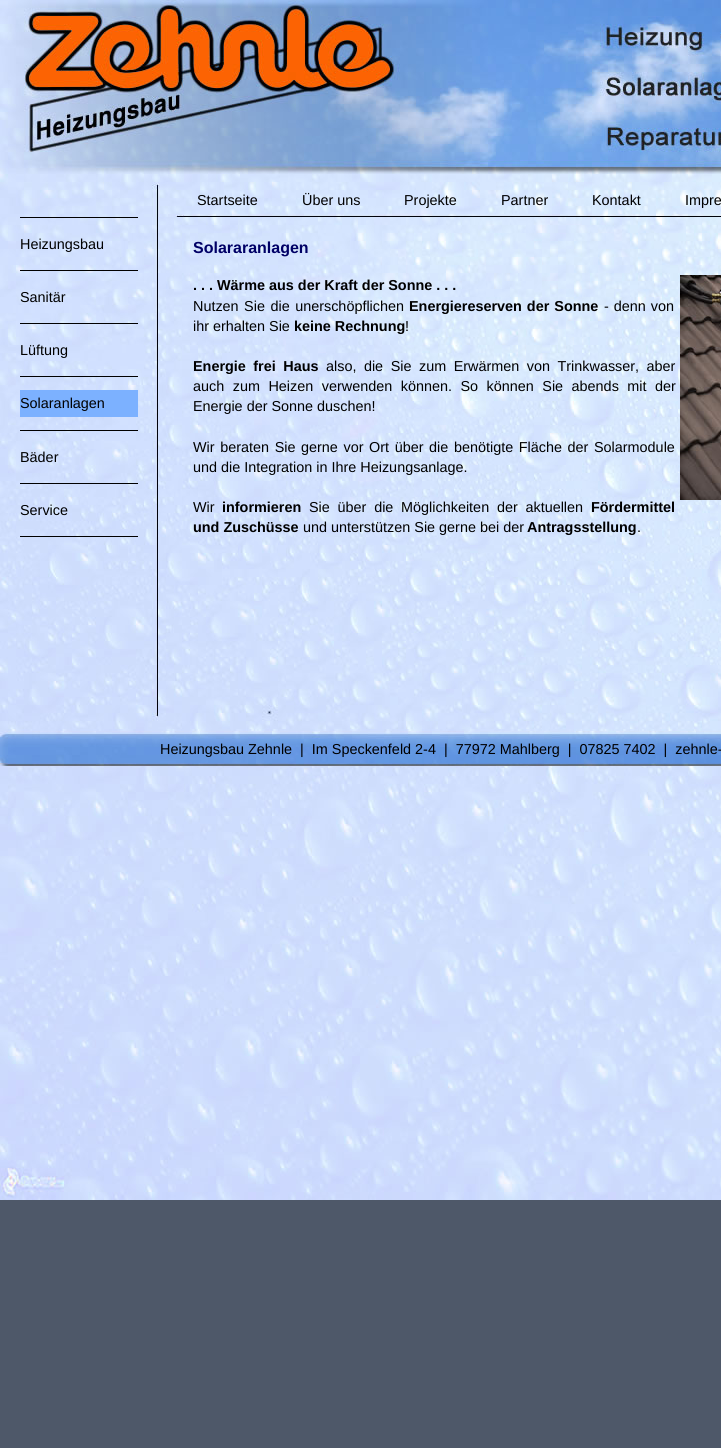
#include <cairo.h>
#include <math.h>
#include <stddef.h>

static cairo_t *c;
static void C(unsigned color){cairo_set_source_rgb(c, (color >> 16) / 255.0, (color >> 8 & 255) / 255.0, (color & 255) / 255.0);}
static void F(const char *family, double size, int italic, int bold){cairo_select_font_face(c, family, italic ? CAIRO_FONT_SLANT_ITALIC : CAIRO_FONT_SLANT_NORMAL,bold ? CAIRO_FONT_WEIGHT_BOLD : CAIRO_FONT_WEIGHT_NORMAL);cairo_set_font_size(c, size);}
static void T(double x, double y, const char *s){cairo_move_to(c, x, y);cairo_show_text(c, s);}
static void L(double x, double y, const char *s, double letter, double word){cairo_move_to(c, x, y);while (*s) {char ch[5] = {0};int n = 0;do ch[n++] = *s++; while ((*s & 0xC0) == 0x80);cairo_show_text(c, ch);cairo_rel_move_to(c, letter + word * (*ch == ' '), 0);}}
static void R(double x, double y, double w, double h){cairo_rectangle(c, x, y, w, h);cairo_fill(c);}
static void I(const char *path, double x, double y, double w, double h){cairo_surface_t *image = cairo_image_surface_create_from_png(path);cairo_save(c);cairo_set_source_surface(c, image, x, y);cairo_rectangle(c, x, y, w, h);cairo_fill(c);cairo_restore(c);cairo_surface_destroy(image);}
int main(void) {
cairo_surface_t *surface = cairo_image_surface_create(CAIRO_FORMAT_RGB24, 721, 1448);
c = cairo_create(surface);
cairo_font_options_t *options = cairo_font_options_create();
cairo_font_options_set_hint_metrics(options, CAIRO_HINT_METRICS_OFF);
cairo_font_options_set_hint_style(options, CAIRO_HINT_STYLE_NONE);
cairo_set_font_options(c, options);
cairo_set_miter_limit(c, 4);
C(0x4e5869);
cairo_paint(c);
I("1.png",0,766,721,434);
I("2.png",0,0,721,174);
I("3.png",0,174,721,43);
F("Liberation Sans",14.4,0,0);
C(0x000000);
T(197,205,"Startseite");
T(302,205,"Über uns");
T(404,205,"Projekte");
T(501,205,"Partner");
T(592,205,"Kontakt");
T(685,205,"Impre");
I("4.png",0,217,158,514);
R(20,217,118,1);
R(20,270,118,1);
T(20,249,"Heizungsbau");
R(20,323,118,1);
T(20,302,"Sanitär");
R(20,376,118,1);
T(20,355,"Lüftung");
R(20,430,118,1);
C(0x7cb1ff);
R(20,390,118,27);
C(0x000000);
T(20,408,"Solaranlagen");
R(20,483,118,1);
T(20,462,"Bäder");
R(20,536,118,1);
T(20,515,"Service");
I("5.png",158,217,563,514);
F("Liberation Sans",16,0,1);
C(0x000066);
T(193,253,"Solararanlagen");
F("Liberation Sans",14.4,0,1);
C(0x000000);
T(193,290,". . . Wärme aus der Kraft der Sonne . . .");
F("Liberation Sans",14.4,0,0);
L(193,311,"Nutzen Sie die unerschöpflichen",0,1.5);
F("Liberation Sans",14.4,0,1);
L(409,311,"Energiereserven der Sonne",0,1);
F("Liberation Sans",14.4,0,0);
L(604,311,"- denn von",0,1);
T(193,331,"ihr erhalten Sie");
F("Liberation Sans",14.4,0,1);
T(294,331,"keine Rechnung");
F("Liberation Sans",14.4,0,0);
T(405,331,"!");
F("Liberation Sans",14.4,0,1);
L(193,371,"Energie frei Haus",0,3.5);
F("Liberation Sans",14.4,0,0);
L(326,371,"also, die Sie zum Erwärmen von Trinkwasser, aber",0,3.5);
L(193,391,"auch zum Heizen verwenden können. So können Sie abends mit der",0,4.5);
T(193,411,"Energie der Sonne duschen!");
L(193,452,"Wir beraten Sie gerne vor Ort über die benötigte Fläche der Solarmodule",0,1.6);
T(193,472,"und die Integration in Ihre Heizungsanlage.");
T(193,512,"Wir");
F("Liberation Sans",14.4,0,1);
T(222,512,"informieren");
F("Liberation Sans",14.4,0,0);
L(309,512,"Sie über die Möglichkeiten der aktuellen",0,3.75);
F("Liberation Sans",14.4,0,1);
T(591,512,"Fördermittel");
T(193,532,"und Zuschüsse");
F("Liberation Sans",14.4,0,0);
T(303,532,"und unterstützen Sie gerne bei der");
F("Liberation Sans",14.4,0,1);
T(527,532,"Antragsstellung");
F("Liberation Sans",14.4,0,0);
T(637,532,".");
I("6.png",680,275,41,225);
I("7.png",0,731,721,35);
T(160,754,"Heizungsbau Zehnle  |  Im Speckenfeld 2-4  |  77972 Mahlberg  |  07825 7402  |  zehnle-");
cairo_surface_write_to_png(surface, "o.png");
cairo_font_options_destroy(options);
cairo_destroy(c);
cairo_surface_destroy(surface);
return 0;
}
